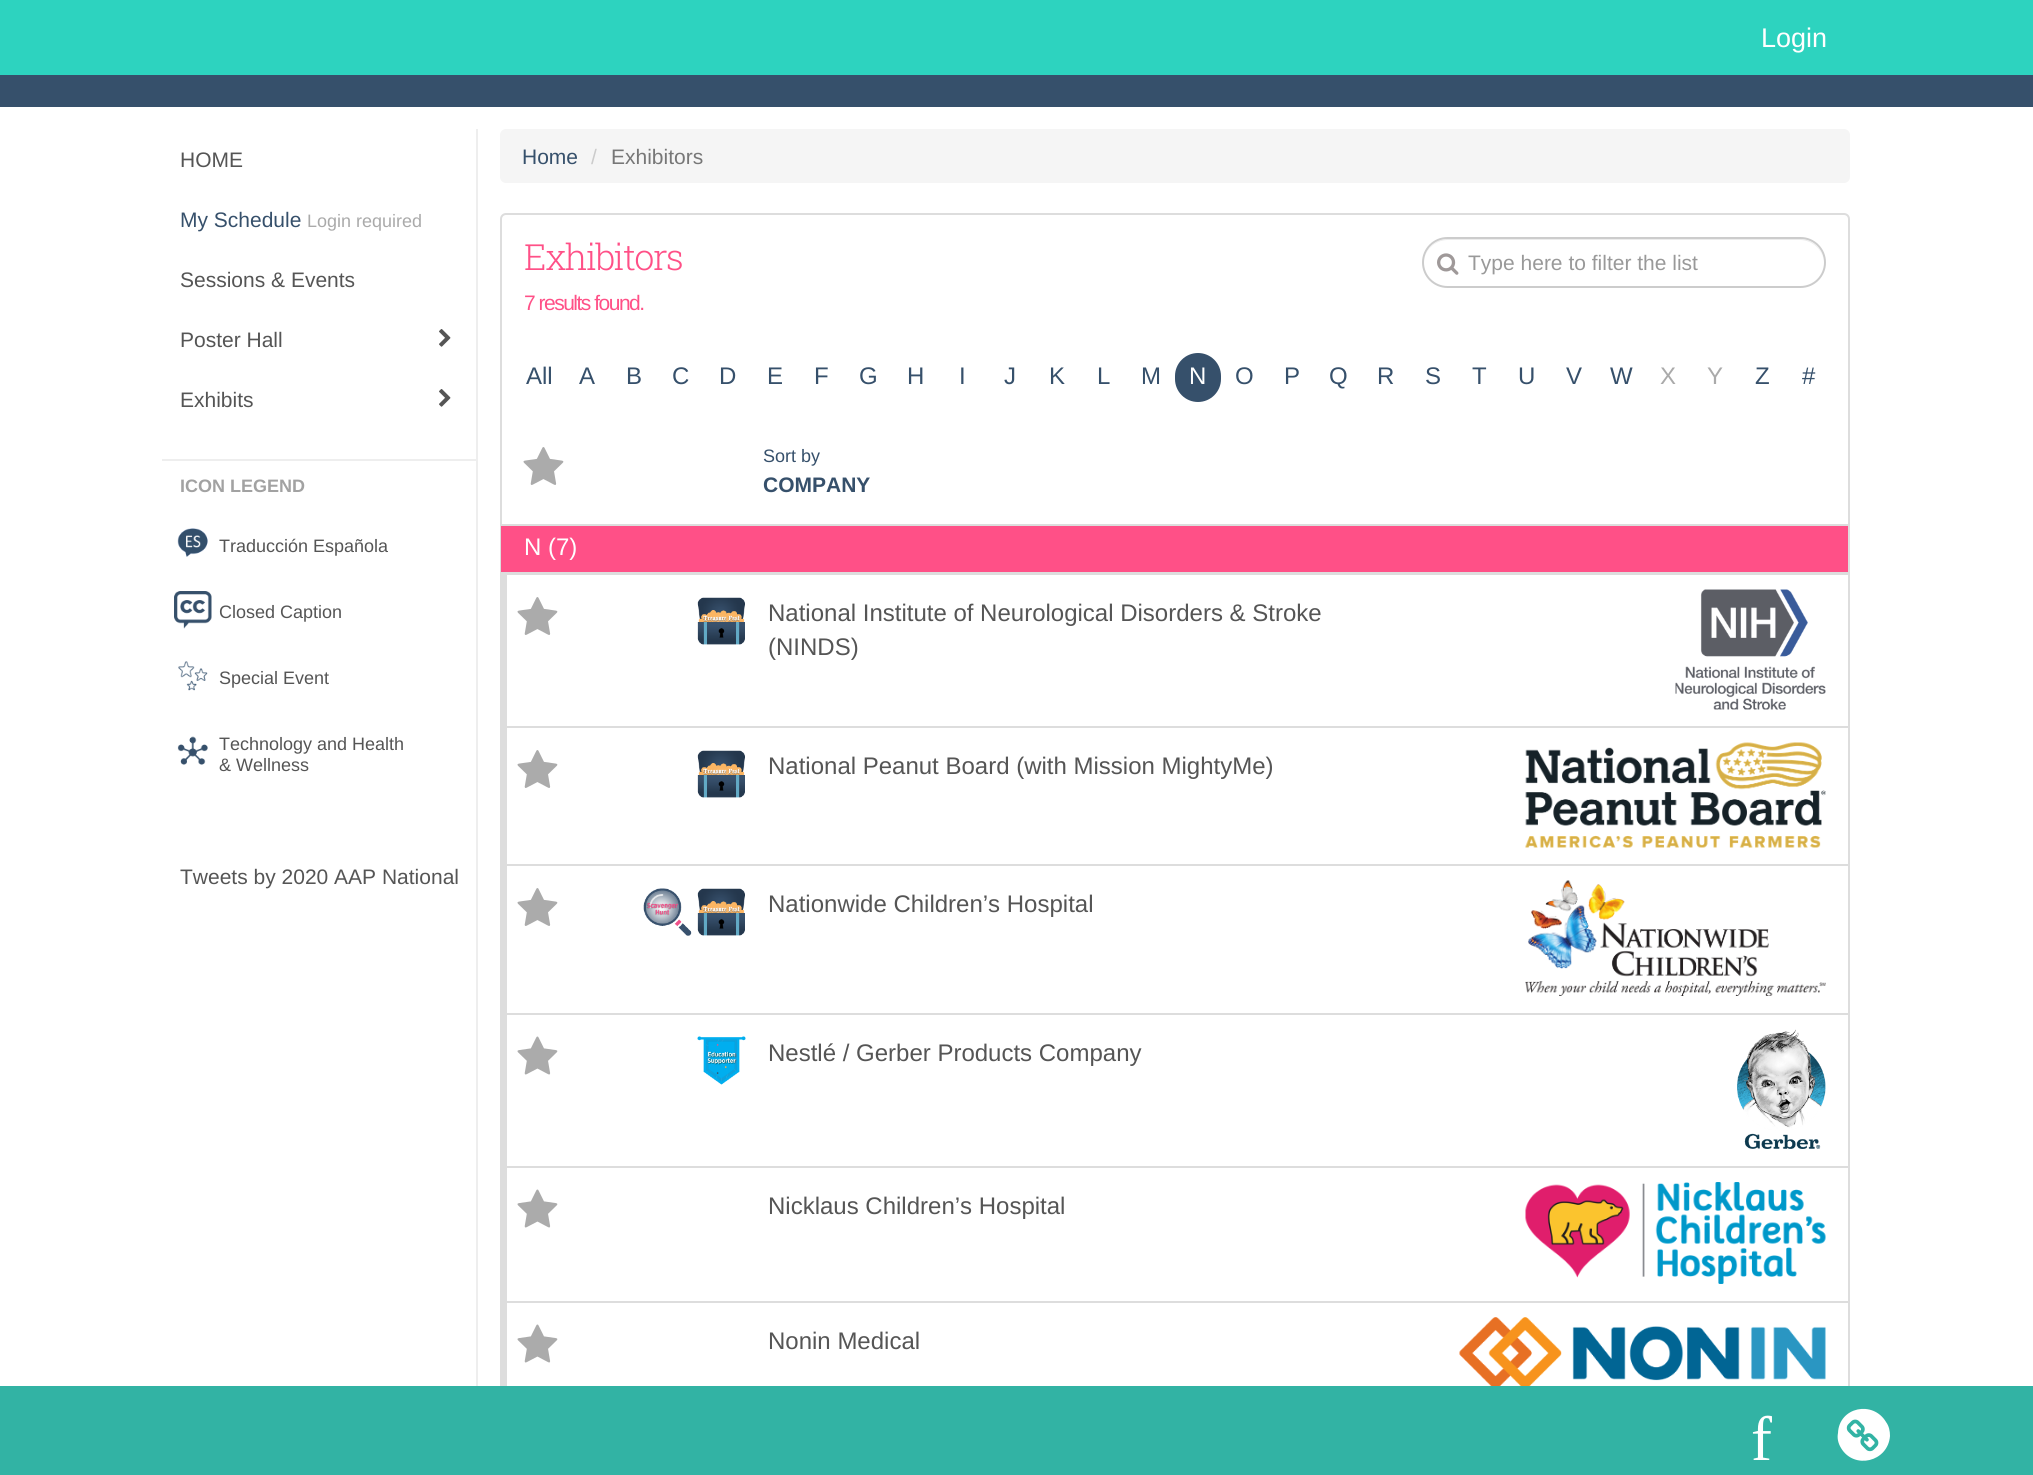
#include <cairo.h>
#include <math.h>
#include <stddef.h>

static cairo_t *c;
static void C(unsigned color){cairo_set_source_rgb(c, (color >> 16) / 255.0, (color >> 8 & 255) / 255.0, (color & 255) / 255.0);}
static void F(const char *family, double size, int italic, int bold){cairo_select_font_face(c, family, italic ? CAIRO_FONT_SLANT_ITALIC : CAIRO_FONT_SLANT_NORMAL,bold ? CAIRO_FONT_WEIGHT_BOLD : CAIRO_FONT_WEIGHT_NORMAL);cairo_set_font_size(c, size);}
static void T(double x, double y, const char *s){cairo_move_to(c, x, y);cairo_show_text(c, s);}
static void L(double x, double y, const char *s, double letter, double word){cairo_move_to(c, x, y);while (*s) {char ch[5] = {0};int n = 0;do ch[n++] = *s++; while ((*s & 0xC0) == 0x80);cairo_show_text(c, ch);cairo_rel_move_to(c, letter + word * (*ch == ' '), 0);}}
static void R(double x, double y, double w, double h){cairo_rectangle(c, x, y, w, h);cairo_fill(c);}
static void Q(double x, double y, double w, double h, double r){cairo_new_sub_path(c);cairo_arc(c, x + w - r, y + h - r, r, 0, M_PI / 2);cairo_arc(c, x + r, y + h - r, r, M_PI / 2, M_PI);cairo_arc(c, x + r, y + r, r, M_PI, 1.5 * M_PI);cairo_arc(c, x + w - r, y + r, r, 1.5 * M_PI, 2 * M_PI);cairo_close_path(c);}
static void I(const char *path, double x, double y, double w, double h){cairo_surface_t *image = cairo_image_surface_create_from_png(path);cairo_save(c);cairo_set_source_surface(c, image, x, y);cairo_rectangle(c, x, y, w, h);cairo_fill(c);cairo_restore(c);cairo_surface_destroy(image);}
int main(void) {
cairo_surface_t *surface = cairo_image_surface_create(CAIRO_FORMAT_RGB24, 2033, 1475);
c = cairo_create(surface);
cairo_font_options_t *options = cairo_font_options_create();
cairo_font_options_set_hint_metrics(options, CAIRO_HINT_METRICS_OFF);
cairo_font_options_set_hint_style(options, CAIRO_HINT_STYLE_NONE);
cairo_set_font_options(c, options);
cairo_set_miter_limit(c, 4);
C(0xffffff);
cairo_paint(c);
C(0x2dd3bf);
R(0,0,2033,75);
F("Liberation Sans",27,0,0);
C(0xffffff);
T(1761,47,"Login");
C(0x36506b);
R(0,75,2033,32);
C(0xeeeeee);
R(476,129,2,1257);
F("Liberation Sans",21,0,0);
C(0x555555);
T(180,167,"HOME");
C(0x36506b);
T(180,227,"My Schedule");
F("Liberation Sans",18,0,0);
C(0xaaaaaa);
T(307,227,"Login required");
F("Liberation Sans",21,0,0);
C(0x555555);
T(180,287,"Sessions & Events");
T(180,347,"Poster Hall");
I("1.png",439,329,12,18);
T(180,407,"Exhibits");
I("1.png",439,389,12,18);
C(0xeeeeee);
R(162,459,314,2);
F("Liberation Sans",18,0,1);
C(0xa2a2a2);
T(180,492,"ICON LEGEND");
I("2.png",177,528,31,29);
F("Liberation Sans",18,0,0);
C(0x555555);
T(219,552,"Traducción Española");
I("3.png",174,591,38,38);
T(219,618,"Closed Caption");
I("4.png",178,661,30,30);
T(219,684,"Special Event");
I("5.png",177,736,31,29);
T(219,750,"Technology and Health");
T(219,771,"& Wellness");
F("Liberation Sans",21,0,0);
T(180,884,"Tweets by 2020 AAP National");
C(0xf5f5f5);
Q(500,129,1350,54,6);
cairo_fill(c);
C(0x36506b);
T(522,164,"Home");
C(0xcccccc);
T(591,164,"/");
C(0x777777);
T(611,164,"Exhibitors");
Q(501,214,1348,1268,5);
C(0xdddddd);
cairo_stroke(c);
F("Roboto Slab Light",36,0,0);
C(0xff5087);
L(524,270,"Exhibitors",-1.5,0);
F("Liberation Sans",21,0,0);
L(524,310,"7 results found.",-1.5,0);
C(0xececec);
cairo_new_path(c);
cairo_move_to(c,1448,240);
cairo_line_to(c,1800,240);
cairo_curve_to(c,1813,240,1824,251,1824,264);
cairo_curve_to(c,1824,250,1813,239,1800,239);
cairo_line_to(c,1448,239);
cairo_curve_to(c,1435,239,1424,250,1424,263);
cairo_curve_to(c,1424,251,1434,240,1448,240);
cairo_close_path(c);
cairo_fill(c);
Q(1423,238,402,49,24.5);
C(0xcccccc);
cairo_stroke(c);
I("6.png",1437,253,22,22);
C(0x999999);
T(1468,270,"Type here to filter the list");
F("Liberation Sans",24,0,0);
C(0x36506b);
T(526,384,"All");
T(579,384,"A");
T(626,384,"B");
T(672,384,"C");
T(719,384,"D");
T(767,384,"E");
T(814,384,"F");
T(859,384,"G");
T(907,384,"H");
T(959,384,"I");
T(1004,384,"J");
T(1049,384,"K");
T(1097,384,"L");
T(1141,384,"M");
Q(1175,353,46,49,23);
cairo_fill(c);
C(0xffffff);
T(1189,384,"N");
C(0x36506b);
T(1235,384,"O");
T(1284,384,"P");
T(1329,384,"Q");
T(1377,384,"R");
T(1425,384,"S");
T(1472,384,"T");
T(1518,384,"U");
T(1566,384,"V");
T(1610,384,"W");
C(0xaaaaaa);
T(1660,384,"X");
T(1707,384,"Y");
C(0x36506b);
T(1755,384,"Z");
T(1802,384,"#");
I("7.png",523,447,41,38);
F("Liberation Sans",18,0,0);
T(763,462,"Sort by");
F("Liberation Sans",21,0,1);
T(763,492,"COMPANY");
C(0xff5087);
R(501,526,1347,46);
C(0xdddddd);
R(501,524,1347,2);
R(502,573,5,813);
R(501,572,1347,2);
F("Liberation Sans",24,0,0);
C(0xffffff);
T(524,555,"N (7)");
C(0xdddddd);
R(507,574,1341,1);
R(507,726,1341,2);
I("7.png",517,597,41,38);
I("8.png",697,597,48,48);
C(0x555555);
T(768,621,"National Institute of Neurological Disorders & Stroke");
T(768,655,"(NINDS)");
I("9.png",1675,589,151,121);
C(0xdddddd);
R(507,864,1341,2);
I("7.png",517,750,41,38);
I("8.png",697,750,48,48);
C(0x555555);
T(768,774,"National Peanut Board (with Mission MightyMe)");
I("10.png",1525,742,301,106);
I("7.png",517,888,41,38);
I("11.png",643,888,49,48);
I("8.png",697,888,48,48);
T(768,912,"Nationwide Children’s Hospital");
I("12.png",1525,880,301,116);
C(0xdddddd);
R(507,1013,1341,2);
I("13.png",517,1036,41,39);
I("14.png",697,1036,49,49);
C(0x555555);
T(768,1061,"Nestlé / Gerber Products Company");
I("15.png",1737,1029,89,120);
C(0xdddddd);
R(507,1166,1341,2);
I("13.png",517,1189,41,39);
C(0x555555);
T(768,1214,"Nicklaus Children’s Hospital");
I("16.png",1525,1182,301,102);
C(0xdddddd);
R(507,1301,1341,2);
I("13.png",517,1324,41,39);
C(0x555555);
T(768,1349,"Nonin Medical");
I("17.png",1459,1317,367,69);
C(0x32b3a4);
R(0,1386,2033,89);
F("Liberation Serif",63,0,0);
C(0xffffff);
T(1751,1460,"f");
cairo_new_path(c);
cairo_move_to(c,1886,1422);
cairo_curve_to(c,1889,1426,1890,1431,1890,1436);
cairo_curve_to(c,1888,1462,1854,1470,1841,1448);
cairo_curve_to(c,1838,1443,1837,1438,1838,1433);
cairo_curve_to(c,1839,1407,1873,1400,1886,1422);
cairo_close_path(c);
cairo_fill(c);
I("18.png",1846,1419,33,33);
cairo_surface_write_to_png(surface, "o.png");
cairo_font_options_destroy(options);
cairo_destroy(c);
cairo_surface_destroy(surface);
return 0;
}
